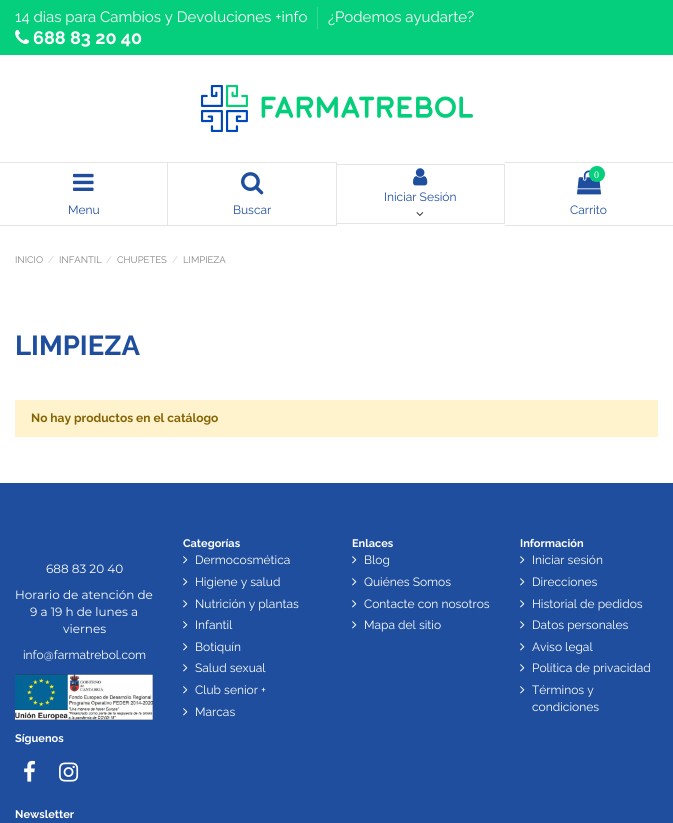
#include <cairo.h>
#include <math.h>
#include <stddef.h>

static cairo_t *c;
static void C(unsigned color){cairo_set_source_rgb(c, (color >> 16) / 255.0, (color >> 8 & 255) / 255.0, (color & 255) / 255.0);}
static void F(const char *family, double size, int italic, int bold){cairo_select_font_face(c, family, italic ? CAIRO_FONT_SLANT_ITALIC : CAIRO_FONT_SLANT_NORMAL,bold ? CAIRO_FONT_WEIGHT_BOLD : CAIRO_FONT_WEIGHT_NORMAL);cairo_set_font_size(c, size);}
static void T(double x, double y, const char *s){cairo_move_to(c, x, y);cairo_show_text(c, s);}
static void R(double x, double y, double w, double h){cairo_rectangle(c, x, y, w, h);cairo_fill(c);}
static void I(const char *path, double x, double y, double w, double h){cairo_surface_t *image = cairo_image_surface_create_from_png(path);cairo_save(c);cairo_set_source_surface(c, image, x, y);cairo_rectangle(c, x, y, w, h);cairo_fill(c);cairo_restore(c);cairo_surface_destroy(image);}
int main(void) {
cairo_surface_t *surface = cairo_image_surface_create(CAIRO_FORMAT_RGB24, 673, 823);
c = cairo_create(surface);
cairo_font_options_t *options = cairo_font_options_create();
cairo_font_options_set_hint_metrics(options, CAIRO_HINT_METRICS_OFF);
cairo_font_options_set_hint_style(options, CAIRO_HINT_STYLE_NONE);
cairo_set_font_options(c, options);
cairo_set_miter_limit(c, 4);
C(0xffffff);
cairo_paint(c);
C(0x05ce7c);
R(0,0,673,55);
F("Raleway",15,0,0);
C(0xffffff);
T(15,22,"14 dias para Cambios y Devoluciones +info");
C(0x37d896);
R(317,7,1,22);
C(0xffffff);
T(328,22,"¿Podemos ayudarte?");
I("1.png",15,29,15,15);
F("Raleway",18,0,1);
T(33,44,"688 83 20 40");
I("2.png",201,85,272,47);
C(0xe5e5e5);
cairo_new_path(c);
cairo_move_to(c,337,164);
cairo_line_to(c,505,164);
cairo_line_to(c,504,165);
cairo_line_to(c,337,165);
cairo_close_path(c);
cairo_fill(c);
cairo_set_source_rgba(c,0.082,0.082,0.082,0.11);
cairo_new_path(c);
cairo_move_to(c,505,164);
cairo_line_to(c,505,224);
cairo_line_to(c,504,223);
cairo_line_to(c,504,165);
cairo_close_path(c);
cairo_fill(c);
cairo_new_path(c);
cairo_move_to(c,505,224);
cairo_line_to(c,337,224);
cairo_line_to(c,337,223);
cairo_line_to(c,504,223);
cairo_close_path(c);
cairo_fill(c);
I("3.png",413,168,15,18);
F("Raleway",12,0,0);
C(0x1e4e9d);
T(384,201,"Iniciar Sesión");
I("4.png",416,212,8,4);
C(0xe5e5e5);
R(505,162,168,1);
R(505,225,168,1);
I("5.png",577,170,24,25);
C(0x05ce7c);
cairo_arc(c,597,174,8,0,2 * M_PI);
cairo_fill(c);
F("Liberation Serif",10,0,0);
C(0xffffff);
T(594,178,"0");
F("Raleway",12,0,0);
C(0x1e4e9d);
T(570,214,"Carrito");
C(0xe5e5e5);
cairo_new_path(c);
cairo_move_to(c,0,162);
cairo_line_to(c,168,162);
cairo_line_to(c,167,163);
cairo_line_to(c,0,163);
cairo_close_path(c);
cairo_fill(c);
cairo_set_source_rgba(c,0.082,0.082,0.082,0.11);
cairo_new_path(c);
cairo_move_to(c,168,162);
cairo_line_to(c,168,226);
cairo_line_to(c,167,225);
cairo_line_to(c,167,163);
cairo_close_path(c);
cairo_fill(c);
cairo_new_path(c);
cairo_move_to(c,168,226);
cairo_line_to(c,0,226);
cairo_line_to(c,0,225);
cairo_line_to(c,167,225);
cairo_close_path(c);
cairo_fill(c);
I("6.png",73,173,21,18);
C(0x1e4e9d);
T(68,214,"Menu");
C(0xe5e5e5);
cairo_new_path(c);
cairo_move_to(c,168,162);
cairo_line_to(c,337,162);
cairo_line_to(c,336,163);
cairo_line_to(c,168,163);
cairo_close_path(c);
cairo_fill(c);
cairo_set_source_rgba(c,0.082,0.082,0.082,0.11);
cairo_new_path(c);
cairo_move_to(c,337,162);
cairo_line_to(c,337,226);
cairo_line_to(c,336,225);
cairo_line_to(c,336,163);
cairo_close_path(c);
cairo_fill(c);
cairo_new_path(c);
cairo_move_to(c,337,226);
cairo_line_to(c,168,226);
cairo_line_to(c,168,225);
cairo_line_to(c,336,225);
cairo_close_path(c);
cairo_fill(c);
I("7.png",241,172,23,23);
C(0x1e4e9d);
T(233,214,"Buscar");
F("Raleway",9.5,0,0);
C(0x858585);
T(15,263,"INICIO");
C(0xcecece);
T(48,263,"/");
C(0x858585);
T(59,263,"INFANTIL");
C(0xcecece);
T(106,263,"/");
C(0x858585);
T(117,263,"CHUPETES");
C(0xcecece);
T(172,263,"/");
C(0x858585);
T(183,263,"LIMPIEZA");
F("Raleway",27.5,0,1);
C(0x1e4e9d);
T(15,355,"LIMPIEZA");
C(0xfff3cd);
R(15,400,643,37);
F("Raleway",12,0,1);
C(0x856404);
T(31,422,"No hay productos en el catálogo");
C(0x1e4e9d);
R(0,483,673,340);
F("Montserrat",12,0,0);
C(0xffffff);
T(46,573,"688 83 20 40");
T(15,599,"Horario de atención de");
T(30,616,"9 a 19 h de lunes a");
T(63,633,"viernes");
F("Raleway",12,0,0);
T(23,659,"info@farmatrebol.com");
I("8.png",15,674,138,46);
F("Raleway",11,0,1);
T(183,547,"Categorías");
I("9.png",183,556,5,8);
F("Raleway",12,0,0);
T(195,564,"Dermocosmética");
I("9.png",183,578,5,8);
T(195,586,"Higiene y salud");
I("9.png",183,600,5,8);
T(195,608,"Nutrición y plantas");
I("9.png",183,621,5,8);
T(195,629,"Infantil");
I("9.png",183,643,5,8);
T(195,651,"Botiquín");
I("9.png",183,664,5,8);
T(195,672,"Salud sexual");
I("9.png",183,686,5,8);
T(195,694,"Club senior +");
I("9.png",183,708,5,8);
T(195,716,"Marcas");
F("Raleway",11,0,1);
T(352,547,"Enlaces");
I("9.png",352,556,5,8);
F("Raleway",12,0,0);
T(364,564,"Blog");
I("9.png",352,578,5,8);
T(364,586,"Quiénes Somos");
I("9.png",352,600,5,8);
T(364,608,"Contacte con nosotros");
I("9.png",352,621,5,8);
T(364,629,"Mapa del sitio");
F("Raleway",11,0,1);
T(520,547,"Información");
I("9.png",520,556,5,8);
F("Raleway",12,0,0);
T(532,564,"Iniciar sesión");
I("9.png",520,578,5,8);
T(532,586,"Direcciones");
I("9.png",520,600,5,8);
T(532,608,"Historial de pedidos");
I("9.png",520,621,5,8);
T(532,629,"Datos personales");
I("9.png",520,643,5,8);
T(532,651,"Aviso legal");
I("9.png",520,664,5,8);
T(532,672,"Política de privacidad");
I("9.png",520,686,5,8);
T(532,694,"Términos y");
T(532,711,"condiciones");
F("Raleway",11,0,1);
T(15,742,"Síguenos");
I("10.png",24,760,11,22);
I("11.png",59,762,20,20);
T(15,818,"Newsletter");
cairo_surface_write_to_png(surface, "o.png");
cairo_font_options_destroy(options);
cairo_destroy(c);
cairo_surface_destroy(surface);
return 0;
}
